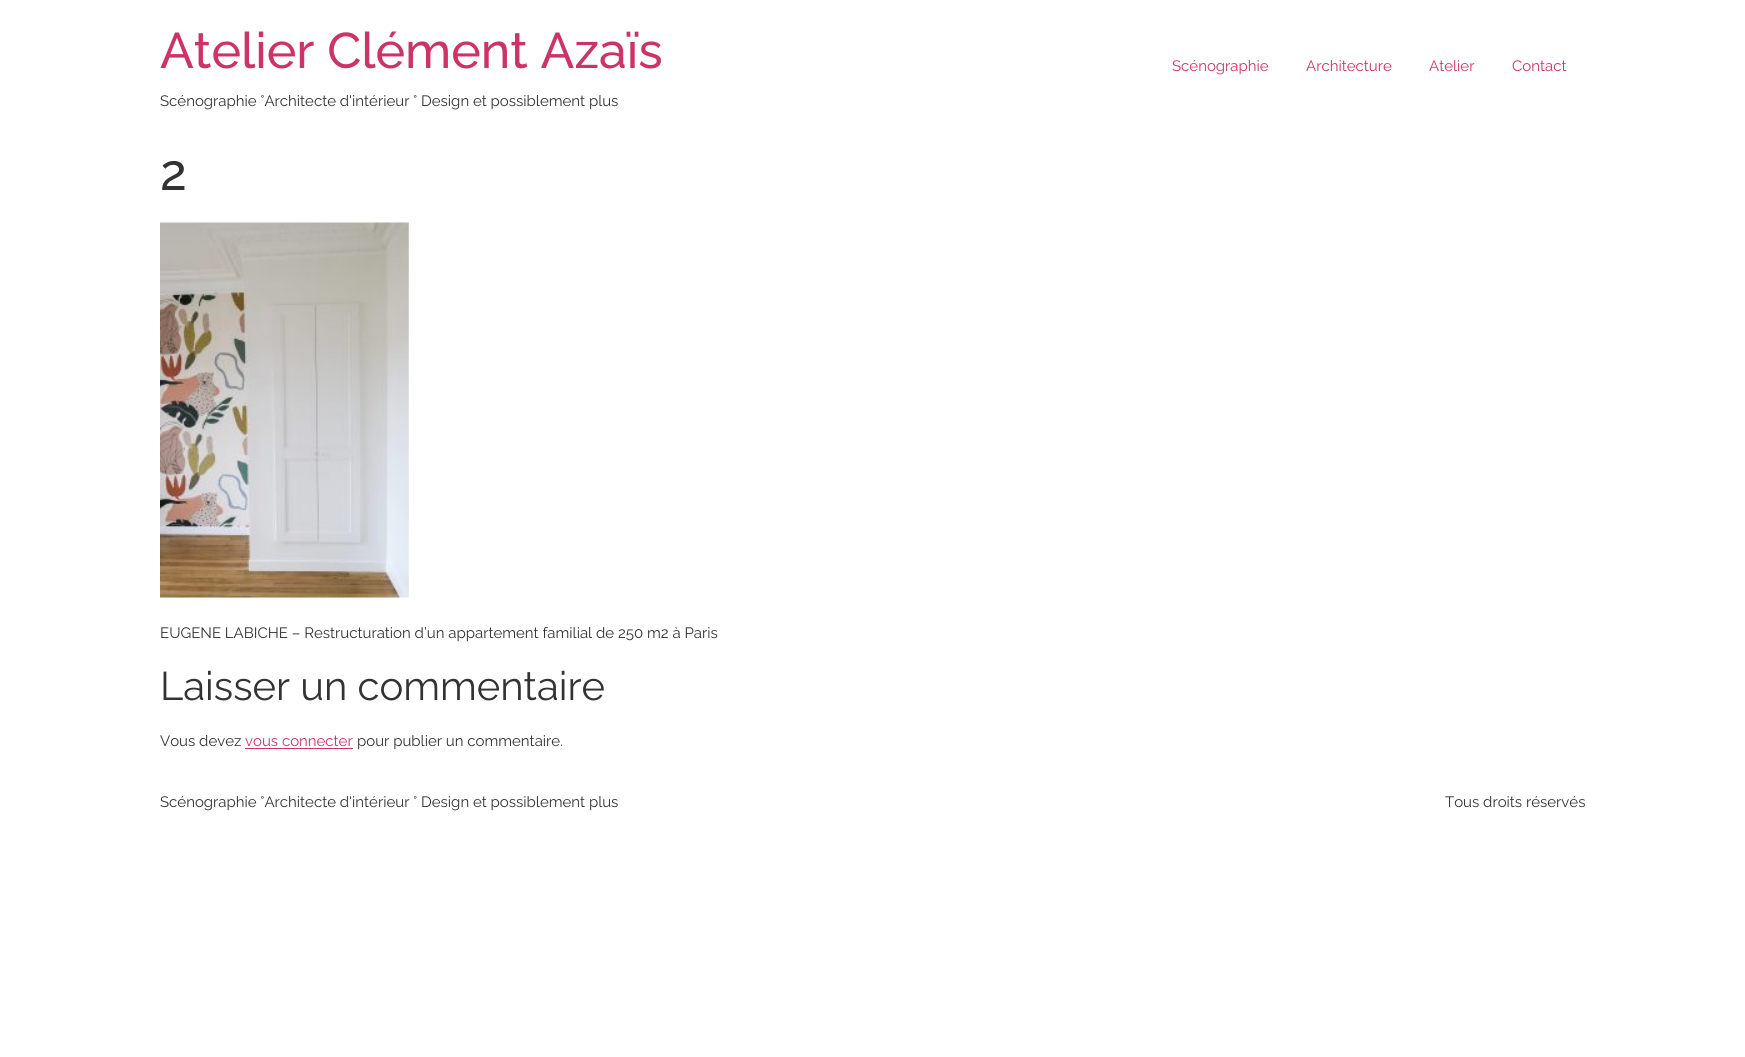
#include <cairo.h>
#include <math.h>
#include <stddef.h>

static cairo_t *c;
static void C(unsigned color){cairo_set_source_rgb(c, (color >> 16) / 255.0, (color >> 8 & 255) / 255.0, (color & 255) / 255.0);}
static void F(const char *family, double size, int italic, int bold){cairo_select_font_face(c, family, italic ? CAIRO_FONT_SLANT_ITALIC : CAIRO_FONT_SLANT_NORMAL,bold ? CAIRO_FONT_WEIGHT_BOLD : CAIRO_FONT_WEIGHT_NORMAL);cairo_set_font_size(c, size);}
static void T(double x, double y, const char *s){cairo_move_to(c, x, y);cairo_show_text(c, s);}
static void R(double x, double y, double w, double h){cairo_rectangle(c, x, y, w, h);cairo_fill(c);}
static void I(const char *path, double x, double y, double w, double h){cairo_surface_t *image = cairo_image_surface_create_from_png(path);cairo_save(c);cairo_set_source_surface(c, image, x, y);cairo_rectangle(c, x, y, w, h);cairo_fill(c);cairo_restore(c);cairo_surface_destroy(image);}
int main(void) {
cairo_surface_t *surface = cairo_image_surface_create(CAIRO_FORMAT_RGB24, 1745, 1057);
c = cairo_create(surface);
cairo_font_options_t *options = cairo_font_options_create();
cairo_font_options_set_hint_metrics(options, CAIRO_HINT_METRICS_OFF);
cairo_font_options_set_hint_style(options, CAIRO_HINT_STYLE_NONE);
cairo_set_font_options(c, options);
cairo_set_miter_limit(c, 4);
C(0xffffff);
cairo_paint(c);
F("Raleway Medium",50,0,0);
C(0xcc3366);
T(160,68,"Atelier Clément Azaïs");
F("Raleway",15,0,0);
C(0x333333);
T(160,106,"Scénographie °Architecte d'intérieur ° Design et possiblement plus");
C(0xcc3366);
T(1172,71,"Scénographie");
T(1306,71,"Architecture");
T(1429,71,"Atelier");
T(1512,71,"Contact");
F("Raleway Medium",50,0,0);
C(0x333333);
T(160,190,"2");
I("1.png",160,222,249,376);
F("Raleway",15,0,0);
T(160,638,"EUGENE LABICHE – Restructuration d’un appartement familial de 250 m2 à Paris");
F("Raleway",40,0,0);
T(160,700,"Laisser un commentaire");
F("Raleway",15,0,0);
T(160,746,"Vous devez");
C(0xcc3366);
T(245,746,"vous connecter");
R(245,748,108,1);
C(0x333333);
T(357,746,"pour publier un commentaire.");
T(160,807,"Scénographie °Architecte d'intérieur ° Design et possiblement plus");
T(1445,807,"Tous droits réservés");
cairo_surface_write_to_png(surface, "o.png");
cairo_font_options_destroy(options);
cairo_destroy(c);
cairo_surface_destroy(surface);
return 0;
}
